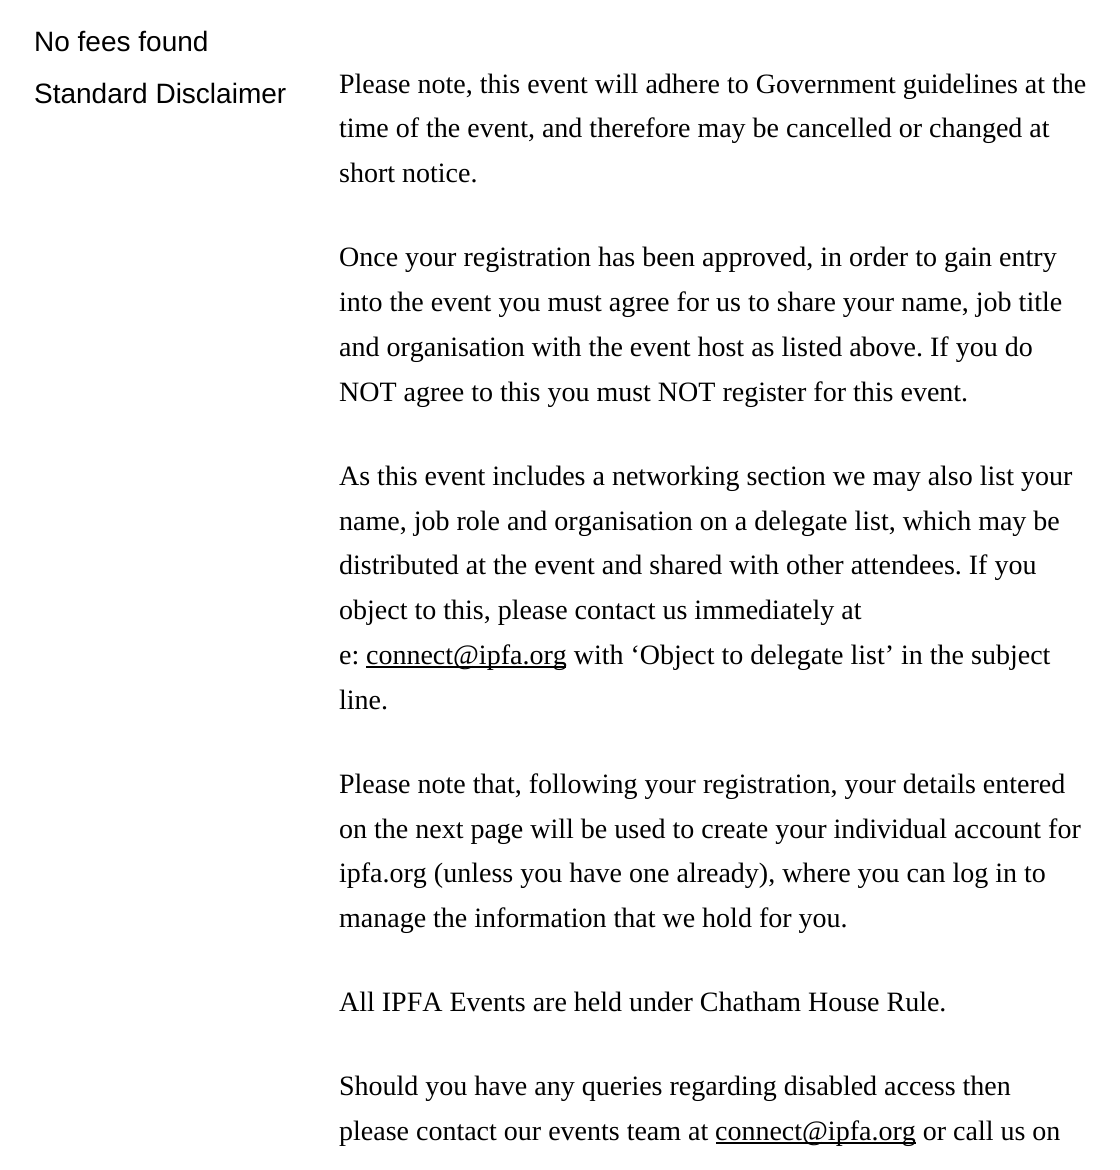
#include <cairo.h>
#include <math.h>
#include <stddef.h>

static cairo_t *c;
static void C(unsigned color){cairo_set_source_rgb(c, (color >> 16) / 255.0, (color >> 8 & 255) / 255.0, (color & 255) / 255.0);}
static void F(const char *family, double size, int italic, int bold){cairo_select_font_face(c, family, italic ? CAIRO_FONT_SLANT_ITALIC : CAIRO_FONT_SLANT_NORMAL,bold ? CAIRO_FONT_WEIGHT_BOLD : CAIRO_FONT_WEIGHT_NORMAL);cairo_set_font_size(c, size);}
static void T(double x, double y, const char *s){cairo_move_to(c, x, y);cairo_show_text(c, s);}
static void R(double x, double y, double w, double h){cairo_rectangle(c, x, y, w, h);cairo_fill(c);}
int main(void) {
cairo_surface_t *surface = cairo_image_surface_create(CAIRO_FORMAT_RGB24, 1120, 1170);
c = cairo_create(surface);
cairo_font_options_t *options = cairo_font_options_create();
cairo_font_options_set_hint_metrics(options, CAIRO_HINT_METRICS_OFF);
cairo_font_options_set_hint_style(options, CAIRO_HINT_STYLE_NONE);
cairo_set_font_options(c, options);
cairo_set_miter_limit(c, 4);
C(0xffffff);
cairo_paint(c);
F("Liberation Sans",28,0,0);
C(0x000000);
T(34,51,"No fees found");
T(34,103,"Standard Disclaimer");
F("Liberation Serif",28,0,0);
T(339,93,"Please note, this event will adhere to Government guidelines at the");
T(339,137,"time of the event, and therefore may be cancelled or changed at");
T(339,182,"short notice.");
T(339,266,"Once your registration has been approved, in order to gain entry");
T(339,311,"into the event you must agree for us to share your name, job title");
T(339,356,"and organisation with the event host as listed above. If you do");
T(339,401,"NOT agree to this you must NOT register for this event.");
T(339,485,"As this event includes a networking section we may also list your");
T(339,530,"name, job role and organisation on a delegate list, which may be");
T(339,574,"distributed at the event and shared with other attendees. If you");
T(339,619,"object to this, please contact us immediately at");
T(339,664,"e:");
R(366,666,200,2);
T(366,664,"connect@ipfa.org with ‘Object to delegate list’ in the subject");
T(339,709,"line.");
T(339,793,"Please note that, following your registration, your details entered");
T(339,838,"on the next page will be used to create your individual account for");
T(339,882,"ipfa.org (unless you have one already), where you can log in to");
T(339,927,"manage the information that we hold for you.");
T(339,1011,"All IPFA Events are held under Chatham House Rule.");
T(339,1095,"Should you have any queries regarding disabled access then");
T(339,1140,"please contact our events team at");
R(716,1142,200,2);
T(715,1140,"connect@ipfa.org or call us on");
cairo_surface_write_to_png(surface, "o.png");
cairo_font_options_destroy(options);
cairo_destroy(c);
cairo_surface_destroy(surface);
return 0;
}
